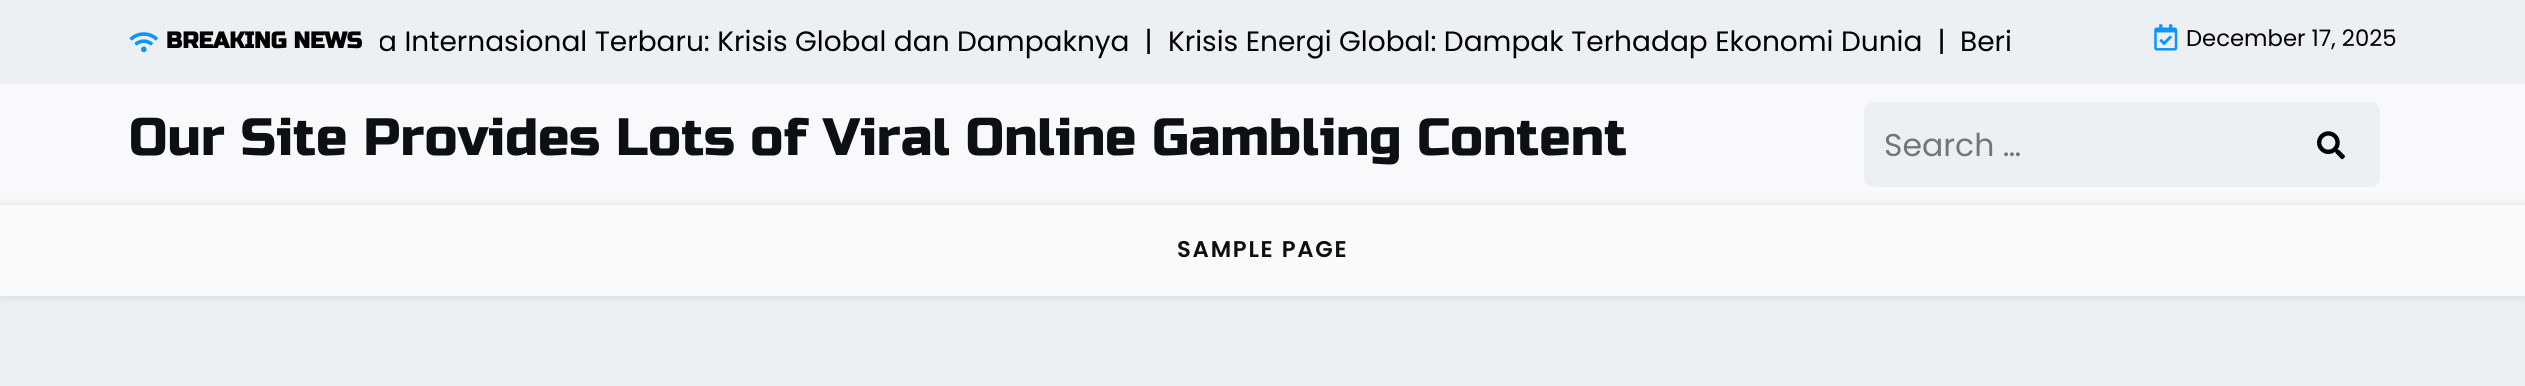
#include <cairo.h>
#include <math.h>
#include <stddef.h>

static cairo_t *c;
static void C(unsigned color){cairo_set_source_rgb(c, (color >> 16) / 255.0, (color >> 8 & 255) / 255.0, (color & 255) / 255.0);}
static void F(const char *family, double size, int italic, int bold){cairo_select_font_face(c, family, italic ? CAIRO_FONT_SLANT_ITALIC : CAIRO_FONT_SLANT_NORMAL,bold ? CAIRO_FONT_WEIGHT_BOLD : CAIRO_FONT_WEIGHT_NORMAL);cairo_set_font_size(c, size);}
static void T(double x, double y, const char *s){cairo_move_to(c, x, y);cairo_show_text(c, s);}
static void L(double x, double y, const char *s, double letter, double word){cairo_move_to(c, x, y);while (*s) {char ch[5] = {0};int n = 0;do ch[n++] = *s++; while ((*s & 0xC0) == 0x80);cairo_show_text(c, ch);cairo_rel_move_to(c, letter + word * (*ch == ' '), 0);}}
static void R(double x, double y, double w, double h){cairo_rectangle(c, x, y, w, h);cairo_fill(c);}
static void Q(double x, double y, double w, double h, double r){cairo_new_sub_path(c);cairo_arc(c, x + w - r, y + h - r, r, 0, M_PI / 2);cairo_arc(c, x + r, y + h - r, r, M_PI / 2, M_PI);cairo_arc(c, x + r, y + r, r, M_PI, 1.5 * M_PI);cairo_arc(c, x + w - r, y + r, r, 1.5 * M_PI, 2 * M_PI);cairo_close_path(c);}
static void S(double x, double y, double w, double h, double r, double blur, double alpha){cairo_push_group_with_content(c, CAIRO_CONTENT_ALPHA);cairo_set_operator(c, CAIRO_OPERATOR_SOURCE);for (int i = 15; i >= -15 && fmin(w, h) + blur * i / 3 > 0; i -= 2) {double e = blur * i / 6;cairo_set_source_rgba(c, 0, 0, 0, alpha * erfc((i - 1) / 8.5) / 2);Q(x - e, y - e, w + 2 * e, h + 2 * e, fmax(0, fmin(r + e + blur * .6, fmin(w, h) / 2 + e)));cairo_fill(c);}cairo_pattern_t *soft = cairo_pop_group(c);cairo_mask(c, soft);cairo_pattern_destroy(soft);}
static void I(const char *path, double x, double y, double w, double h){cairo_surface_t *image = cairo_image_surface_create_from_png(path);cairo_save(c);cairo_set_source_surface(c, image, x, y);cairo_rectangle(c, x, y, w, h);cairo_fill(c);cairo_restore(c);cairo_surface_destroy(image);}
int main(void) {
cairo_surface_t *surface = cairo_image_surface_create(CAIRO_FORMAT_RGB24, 2525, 386);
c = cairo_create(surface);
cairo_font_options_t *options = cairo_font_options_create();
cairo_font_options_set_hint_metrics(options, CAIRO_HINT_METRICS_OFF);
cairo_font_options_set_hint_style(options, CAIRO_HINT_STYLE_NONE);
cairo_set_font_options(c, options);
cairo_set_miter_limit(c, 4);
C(0xecf0f3);
cairo_paint(c);
I("1.png",129,32,29,21);
F("Russo One",22.75,0,1);
C(0x000000);
T(166,48,"BREAKING NEWS");
cairo_save(c);
cairo_rectangle(c,380,21,1633,42);
cairo_clip(c);
F("Poppins",28,0,0);
T(378,51,"a Internasional Terbaru: Krisis Global dan Dampaknya  |");
cairo_restore(c);
F("Poppins",28,0,0);
T(1168,51,"Krisis Energi Global: Dampak Terhadap Ekonomi Dunia  |");
T(1960,51,"Beri");
I("2.png",2154,24,24,27);
F("Poppins",22.75,0,0);
T(2186,46,"December 17, 2025");
C(0xf9f9fc);
R(0,84,2525,121);
F("Russo One",52.5,0,0);
C(0x0d1013);
T(129,155,"Our Site Provides Lots of Viral Online Gambling Content");
C(0xecf0f3);
Q(1864,102,516,85,9);
cairo_fill(c);
F("Poppins",31.5,0,0);
C(0x757575);
T(1884,156,"Search …");
I("3.png",2317,131,28,29);
C(0x000000);
S(0,205,2525,91,0,4.5,.12);
C(0xfafafa);
R(0,205,2525,91);
F("Poppins SemiBold",22.75,0,0);
C(0x0d1013);
L(1177,257,"SAMPLE PAGE",1.75,0);
cairo_surface_write_to_png(surface, "o.png");
cairo_font_options_destroy(options);
cairo_destroy(c);
cairo_surface_destroy(surface);
return 0;
}
